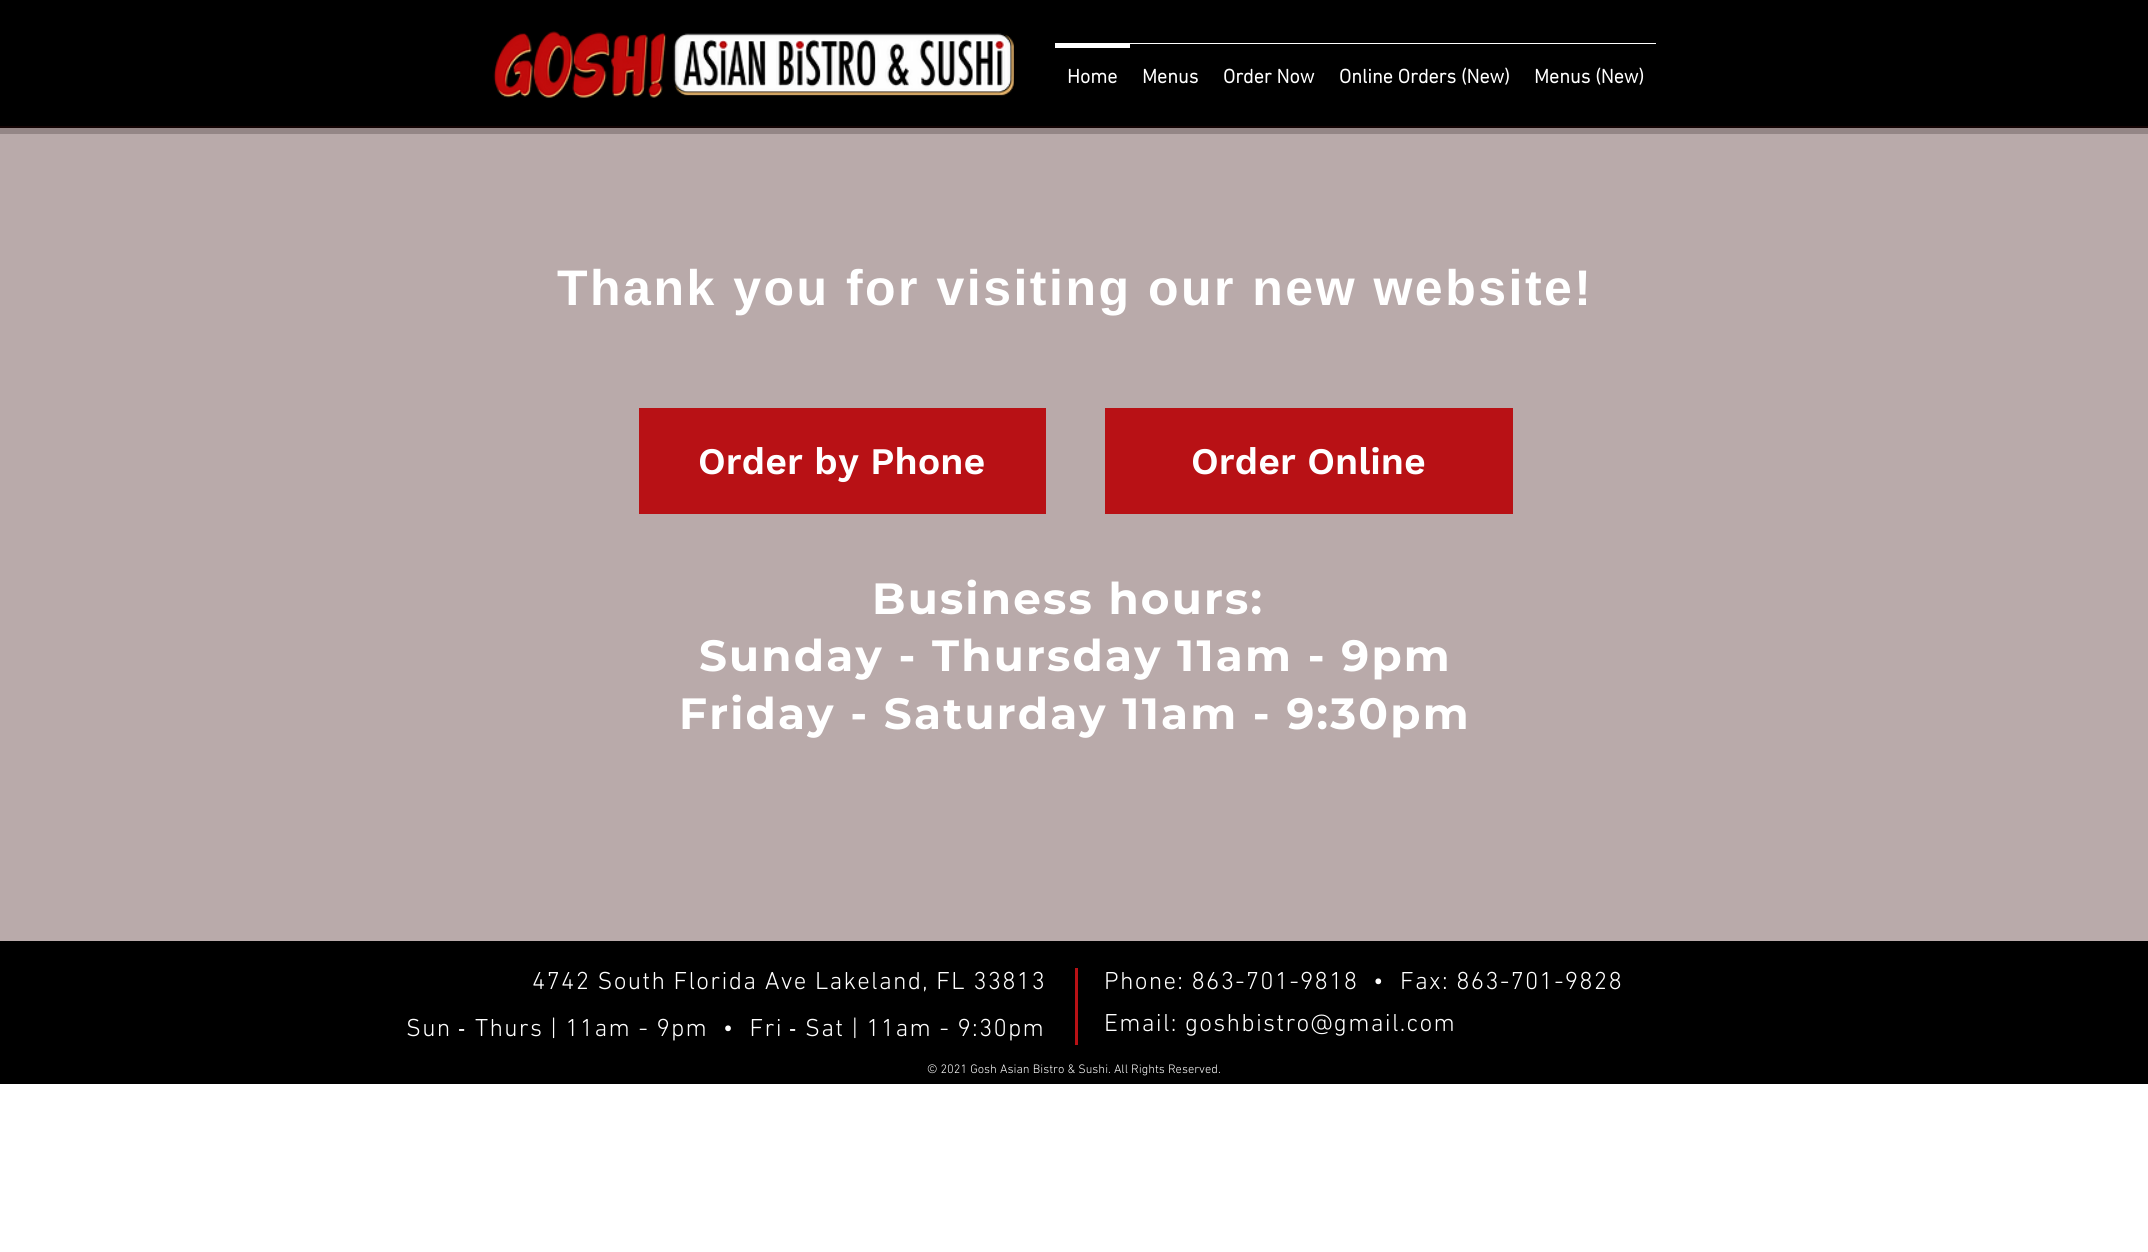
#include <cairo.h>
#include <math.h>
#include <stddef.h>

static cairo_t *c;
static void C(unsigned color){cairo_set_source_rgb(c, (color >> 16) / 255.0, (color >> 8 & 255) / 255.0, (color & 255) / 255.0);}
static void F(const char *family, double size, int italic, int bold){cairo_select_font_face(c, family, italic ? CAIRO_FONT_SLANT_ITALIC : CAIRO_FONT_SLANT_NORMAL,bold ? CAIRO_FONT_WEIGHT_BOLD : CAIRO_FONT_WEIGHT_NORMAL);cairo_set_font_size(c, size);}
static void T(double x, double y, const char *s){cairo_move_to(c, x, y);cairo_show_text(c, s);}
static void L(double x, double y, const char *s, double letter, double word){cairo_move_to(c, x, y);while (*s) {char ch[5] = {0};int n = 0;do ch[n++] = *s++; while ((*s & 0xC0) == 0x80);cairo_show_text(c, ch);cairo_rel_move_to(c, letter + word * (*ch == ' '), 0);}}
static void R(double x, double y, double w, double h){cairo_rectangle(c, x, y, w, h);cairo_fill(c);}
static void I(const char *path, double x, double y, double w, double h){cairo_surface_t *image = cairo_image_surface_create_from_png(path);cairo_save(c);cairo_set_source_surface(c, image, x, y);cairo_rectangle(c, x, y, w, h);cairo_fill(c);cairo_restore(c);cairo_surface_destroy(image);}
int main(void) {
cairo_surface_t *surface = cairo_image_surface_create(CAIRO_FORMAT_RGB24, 2148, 1252);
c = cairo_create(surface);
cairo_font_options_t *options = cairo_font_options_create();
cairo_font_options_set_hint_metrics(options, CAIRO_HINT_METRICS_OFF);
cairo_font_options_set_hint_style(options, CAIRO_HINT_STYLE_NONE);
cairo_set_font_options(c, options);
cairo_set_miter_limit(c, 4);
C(0xffffff);
cairo_paint(c);
C(0xb9aaaa);
R(0,134,2148,807);
C(0x000000);
R(0,0,2148,126);
C(0x130404);
R(0,126,2148,2);
C(0x948686);
R(0,128,2148,6);
I("1.png",493,31,522,67);
C(0xffffff);
R(1055,43,75,5);
F("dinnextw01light",20,0,1);
T(1067,83,"Home");
R(1130,43,526,1);
T(1142,83,"Menus");
T(1223,83,"Order Now");
T(1339,83,"Online Orders (New)");
T(1534,83,"Menus (New)");
F("Liberation Sans",50,0,1);
L(557,305,"Thank you for visiting our new website!",2.5,0);
C(0xb81115);
R(639,408,407,106);
F("Work Sans SemiBold",37.5,0,0);
C(0xffffff);
T(698,474,"Order by Phone");
C(0xb81115);
R(1105,408,408,106);
C(0xffffff);
T(1191,474,"Order Online");
F("Montserrat",43.75,0,1);
L(872,614,"Business hours:",2.2,0);
L(699,671,"Sunday - Thursday 11am - 9pm",2.2,0);
L(679,729,"Friday - Saturday 11am - 9:30pm",2.2,0);
C(0x000000);
R(0,941,2148,143);
F("dinnextw01light Light",25,0,0);
C(0xffffff);
L(532,989,"4742 South Florida Ave Lakeland, FL 33813",1.25,0);
L(406,1036,"Sun",1.25,0);
F("futura",25,0,0);
L(459,1036,"-",1.25,0);
F("dinnextw01light Light",25,0,0);
L(475,1036,"Thurs | 11am - 9pm  •  Fri",1.25,0);
F("futura",25,0,0);
L(790,1036,"-",1.25,0);
F("dinnextw01light Light",25,0,0);
L(805,1036,"Sat | 11am - 9:30pm",1.25,0);
C(0xb81115);
R(1075,968,3,77);
C(0xffffff);
L(1104,989,"Phone: 863-701-9818  •",1.25,0);
L(1400,989,"Fax: 863-701-9828",1.25,0);
L(1104,1031,"Email: goshbistro@gmail.com",1.25,0);
F("dinnextw01light Light",12.5,0,0);
T(927,1073,"© 2021 Gosh Asian Bistro & Sushi. All Rights Reserved.");
cairo_surface_write_to_png(surface, "o.png");
cairo_font_options_destroy(options);
cairo_destroy(c);
cairo_surface_destroy(surface);
return 0;
}
